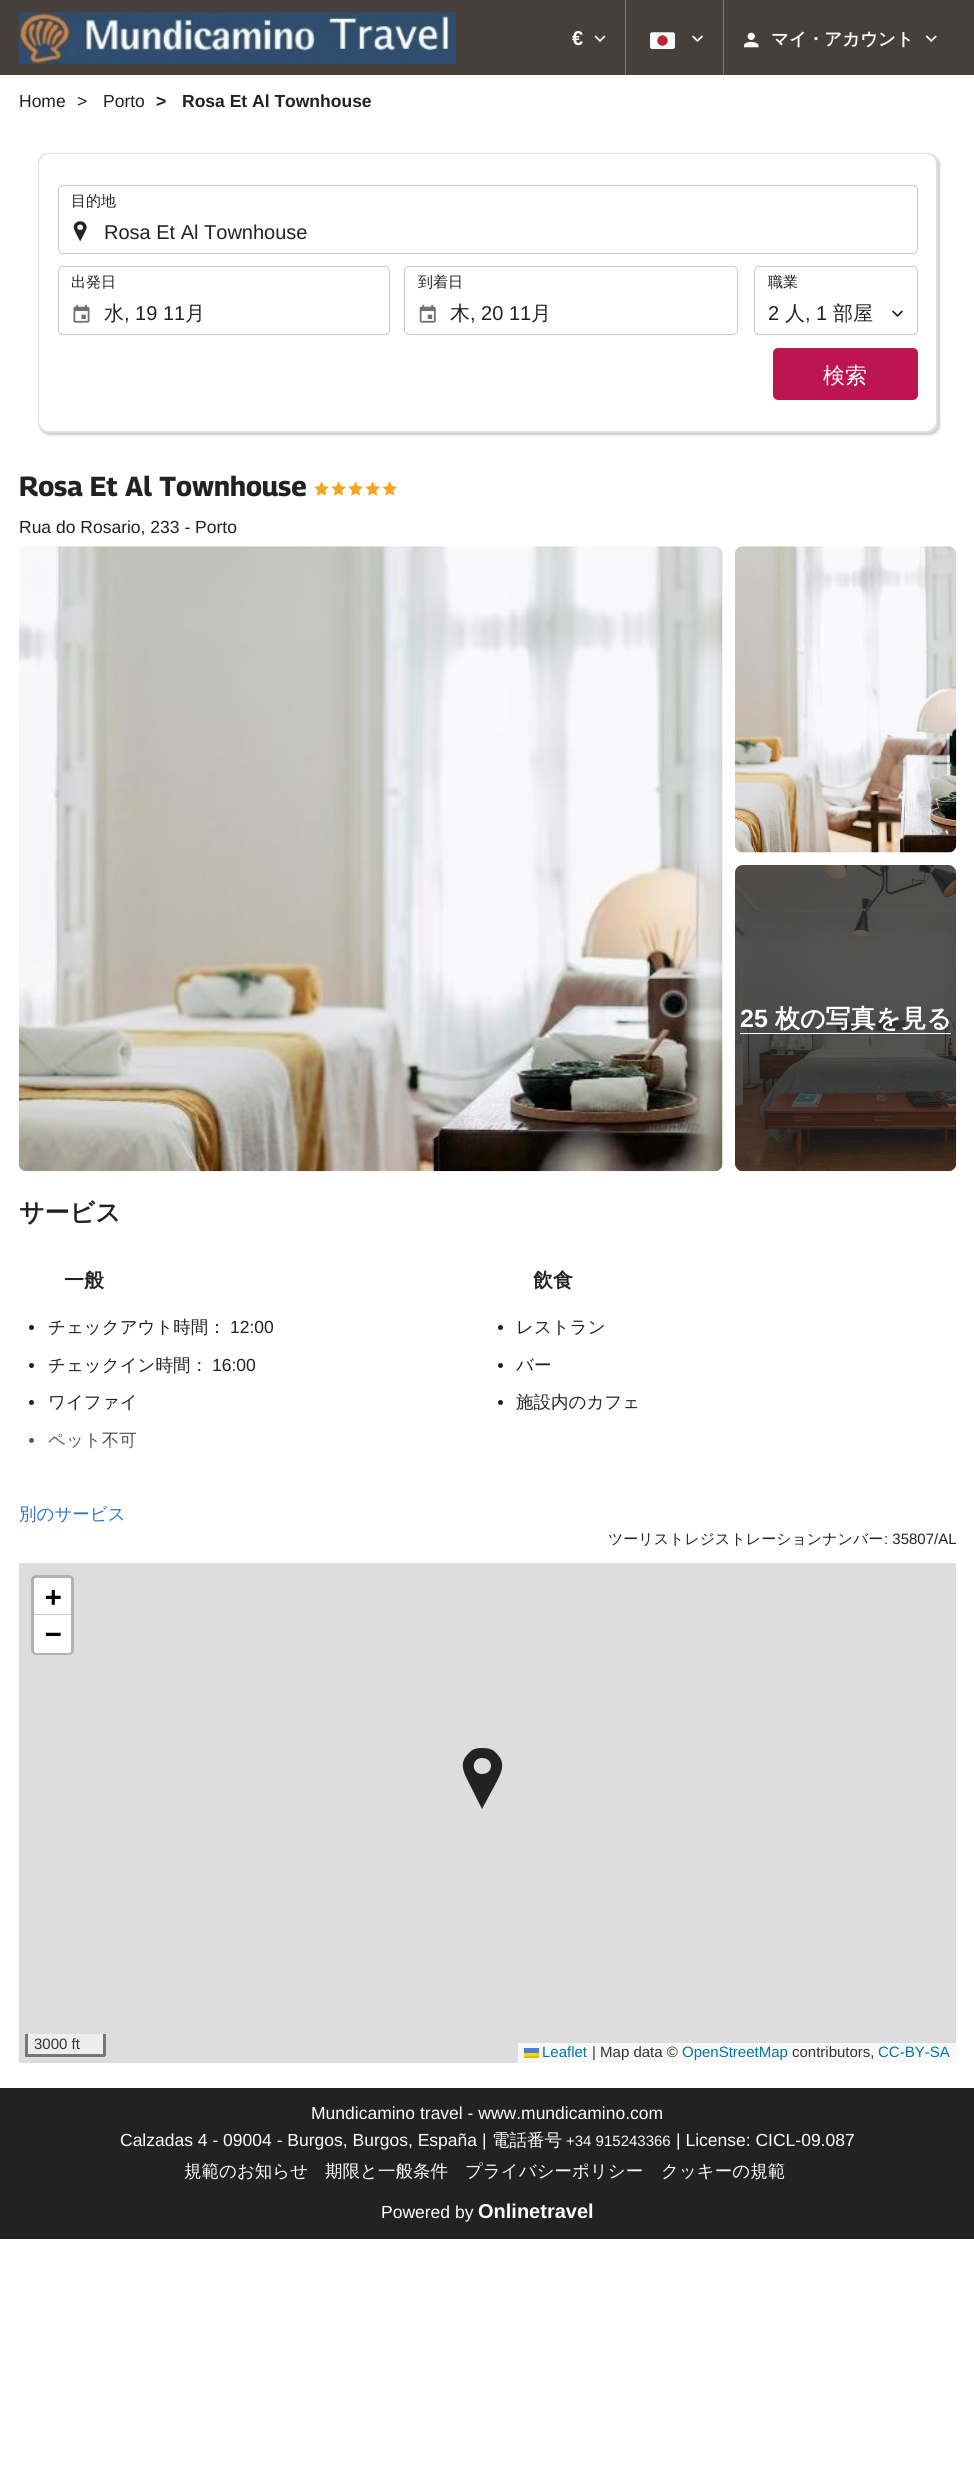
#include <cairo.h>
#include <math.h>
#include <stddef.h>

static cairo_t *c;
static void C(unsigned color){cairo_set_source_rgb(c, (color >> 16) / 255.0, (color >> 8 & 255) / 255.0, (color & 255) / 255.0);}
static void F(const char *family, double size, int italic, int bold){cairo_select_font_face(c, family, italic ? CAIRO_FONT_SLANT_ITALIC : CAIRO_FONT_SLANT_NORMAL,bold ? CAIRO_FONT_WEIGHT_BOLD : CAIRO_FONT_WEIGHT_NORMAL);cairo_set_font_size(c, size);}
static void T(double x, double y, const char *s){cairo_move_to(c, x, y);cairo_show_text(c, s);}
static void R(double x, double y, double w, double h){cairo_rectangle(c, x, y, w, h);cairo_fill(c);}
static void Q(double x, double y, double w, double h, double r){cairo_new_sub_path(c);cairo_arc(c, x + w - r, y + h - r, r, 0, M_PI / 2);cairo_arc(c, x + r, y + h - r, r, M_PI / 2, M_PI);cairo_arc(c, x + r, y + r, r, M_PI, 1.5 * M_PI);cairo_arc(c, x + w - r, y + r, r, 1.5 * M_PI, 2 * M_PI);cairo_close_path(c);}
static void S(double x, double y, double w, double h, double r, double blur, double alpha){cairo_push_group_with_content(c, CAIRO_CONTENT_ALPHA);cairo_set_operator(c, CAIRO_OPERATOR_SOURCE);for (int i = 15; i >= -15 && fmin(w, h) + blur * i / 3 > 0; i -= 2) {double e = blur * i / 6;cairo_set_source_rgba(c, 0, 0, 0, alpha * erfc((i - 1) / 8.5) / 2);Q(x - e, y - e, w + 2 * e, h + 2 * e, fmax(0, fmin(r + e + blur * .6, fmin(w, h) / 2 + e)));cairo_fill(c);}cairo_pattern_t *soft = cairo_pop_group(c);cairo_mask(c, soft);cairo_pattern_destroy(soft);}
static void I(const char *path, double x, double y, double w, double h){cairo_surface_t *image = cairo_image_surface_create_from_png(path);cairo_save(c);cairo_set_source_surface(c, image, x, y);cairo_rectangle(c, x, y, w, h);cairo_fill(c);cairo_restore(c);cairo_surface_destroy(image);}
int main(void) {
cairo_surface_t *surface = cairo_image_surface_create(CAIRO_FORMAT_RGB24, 974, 2479);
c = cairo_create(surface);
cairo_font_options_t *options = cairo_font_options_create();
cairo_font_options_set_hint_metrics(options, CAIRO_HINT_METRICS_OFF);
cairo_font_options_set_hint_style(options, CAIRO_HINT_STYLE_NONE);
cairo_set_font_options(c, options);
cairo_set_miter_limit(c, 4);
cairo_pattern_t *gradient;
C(0xffffff);
cairo_paint(c);
C(0x46403c);
R(0,0,974,75);
I("1.png",18,12,439,52);
C(0x7e7977);
R(625,0,1,75);
F("Liberation Sans",20,0,1);
C(0xffffff);
T(572,45,"€");
I("2.png",594,35,12,7);
C(0x7e7977);
R(723,0,1,75);
I("3.png",650,32,25,17);
I("4.png",692,35,11,7);
I("5.png",743,32,16,16);
F("WenQuanYi Zen Hei",17.5,0,1);
C(0xffffff);
T(771,45,"マイ・アカウント");
I("6.png",925,35,12,7);
F("Liberation Sans",17.5,0,0);
C(0x222222);
T(19,107,"Home");
T(77,107,">");
T(103,107,"Porto");
F("Liberation Sans",17.5,0,1);
T(156,107,">");
T(182,107,"Rosa Et Al Townhouse");
C(0x000000);
S(40,155,900,280,10,1,.2);
C(0xdfdfdf);
Q(38,153,900,280,10);
cairo_fill(c);
C(0xffffff);
Q(39,154,897,277,10);
cairo_fill(c);
I("7.png",73,221,14,21);
Q(58.5,185.5,859,68,4.5);
C(0xd0cbc9);
cairo_set_line_width(c,1);
cairo_stroke(c);
F("WenQuanYi Zen Hei Medium",15,0,0);
C(0x222222);
T(71,206,"目的地");
F("Liberation Sans",20,0,0);
T(104,239,"Rosa Et Al Townhouse");
I("8.png",73,304,17,19);
Q(58.5,266.5,331,68,4.5);
C(0xd0cbc9);
cairo_stroke(c);
F("WenQuanYi Zen Hei Medium",15,0,0);
C(0x222222);
T(71,287,"出発日");
F("WenQuanYi Zen Hei Medium",20,0,0);
T(104,320,"水");
F("Liberation Sans",20,0,0);
T(124,320,", 19 11");
F("WenQuanYi Zen Hei Medium",20,0,0);
T(185,320,"月");
I("9.png",419,304,17,19);
Q(404.5,266.5,333,68,4.5);
C(0xd0cbc9);
cairo_stroke(c);
F("WenQuanYi Zen Hei Medium",15,0,0);
C(0x222222);
T(418,287,"到着日");
F("WenQuanYi Zen Hei Medium",20,0,0);
T(450,320,"木");
F("Liberation Sans",20,0,0);
T(470,320,", 20 11");
F("WenQuanYi Zen Hei Medium",20,0,0);
T(531,320,"月");
Q(754.5,266.5,163,68,4.5);
C(0xd0cbc9);
cairo_stroke(c);
F("WenQuanYi Zen Hei Medium",15,0,0);
C(0x222222);
T(768,287,"職業");
F("Liberation Sans",20,0,0);
T(768,320,"2");
F("WenQuanYi Zen Hei Medium",20,0,0);
T(785,320,"人");
F("Liberation Sans",20,0,0);
T(805,320,", 1");
F("WenQuanYi Zen Hei Medium",20,0,0);
T(833,320,"部屋");
I("10.png",892,310,11,7);
C(0xbd1550);
Q(773,348,145,52,5);
cairo_fill(c);
F("WenQuanYi Zen Hei Medium",22,0,0);
C(0xffffff);
T(823,383,"検索");
F("Georama",27.5,0,1);
C(0x222222);
T(19,496,"Rosa Et Al Townhouse");
I("11.png",314,481,83,15);
F("Liberation Sans",17.5,0,0);
T(19,533,"Rua do Rosario, 233 - Porto");
I("12.png",18,546,705,626);
I("13.png",735,546,222,307);
I("14.png",735,865,222,307);
cairo_set_source_rgba(c,0.133,0.133,0.133,0.7);
Q(735,865,221,306,8);
cairo_fill(c);
F("Liberation Sans",25,0,1);
C(0xffffff);
T(740,1027,"25");
R(740,1033,211,1);
F("WenQuanYi Zen Hei",25,0,1);
T(775,1027,"枚の写真を見る");
C(0x222222);
T(19,1221,"サービス");
F("WenQuanYi Zen Hei",20,0,1);
T(64,1287,"一般");
cairo_new_path(c);
cairo_arc(c,31.5,1327.5,2.5,0,2 * M_PI);
cairo_fill(c);
F("WenQuanYi Zen Hei Medium",17.5,0,0);
T(48,1333,"チェックアウト時間：");
F("Liberation Sans",17.5,0,0);
T(230,1333,"12:00");
cairo_new_path(c);
cairo_arc(c,31.5,1365.5,2.5,0,2 * M_PI);
cairo_fill(c);
F("WenQuanYi Zen Hei Medium",17.5,0,0);
T(48,1371,"チェックイン時間：");
F("Liberation Sans",17.5,0,0);
T(212,1371,"16:00");
cairo_new_path(c);
cairo_arc(c,31.5,1402.5,2.5,0,2 * M_PI);
cairo_fill(c);
F("WenQuanYi Zen Hei Medium",17.5,0,0);
T(48,1408,"ワイファイ");
cairo_new_path(c);
cairo_arc(c,31.5,1440.5,2.5,0,2 * M_PI);
cairo_fill(c);
T(48,1446,"ペット不可");
F("WenQuanYi Zen Hei",20,0,1);
T(533,1287,"飲食");
cairo_new_path(c);
cairo_arc(c,500.5,1327.5,2.5,0,2 * M_PI);
cairo_fill(c);
F("WenQuanYi Zen Hei Medium",17.5,0,0);
T(516,1333,"レストラン");
cairo_new_path(c);
cairo_arc(c,500.5,1365.5,2.5,0,2 * M_PI);
cairo_fill(c);
T(516,1371,"バー");
cairo_new_path(c);
cairo_arc(c,500.5,1402.5,2.5,0,2 * M_PI);
cairo_fill(c);
T(516,1408,"施設内のカフェ");
gradient = cairo_pattern_create_linear(488,1425,488,1488);
cairo_pattern_add_color_stop_rgba(gradient,0,1,1,1,0);
cairo_pattern_add_color_stop_rgba(gradient,1,1,1,1,1);
cairo_set_source(c,gradient);
cairo_pattern_destroy(gradient);
R(29,1432,107,17);
C(0x3171c9);
T(19,1520,"別のサービス");
F("WenQuanYi Zen Hei Medium",15,0,0);
C(0x222222);
T(608,1544,"ツーリストレジストレーションナンバー");
F("Liberation Sans",15,0,0);
T(884,1544,": 35807/AL");
C(0xdddddd);
R(19,1563,937,500);
Q(32.5,1576.5,40,77,3.5);
C(0xb1b1b1);
cairo_set_line_width(c,3);
cairo_stroke(c);
C(0xffffff);
cairo_new_path(c);
cairo_move_to(c,36.5,1578);
cairo_line_to(c,68.5,1578);
cairo_curve_to(c,70,1578,71,1579,71,1580.5);
cairo_line_to(c,71,1615);
cairo_line_to(c,34,1615);
cairo_line_to(c,34,1580.5);
cairo_curve_to(c,34,1579,35,1578,36.5,1578);
cairo_close_path(c);
cairo_fill(c);
C(0xcccccc);
R(34,1614,37,1);
F("DejaVu Sans Mono",27.5,0,1);
C(0x000000);
T(45,1606,"+");
C(0xffffff);
cairo_new_path(c);
cairo_move_to(c,34,1615);
cairo_line_to(c,71,1615);
cairo_line_to(c,71,1650.5);
cairo_curve_to(c,71,1652,70,1653,68.5,1653);
cairo_line_to(c,36.5,1653);
cairo_curve_to(c,35,1653,34,1652,34,1650.5);
cairo_close_path(c);
cairo_fill(c);
C(0x000000);
T(45,1643,"−");
C(0xeeeeee);
R(28,2034,75,20);
C(0x777777);
R(103,2034,3,22);
R(25,2054,80,3);
R(25,2034,3,22);
F("Liberation Sans",15,0,0);
C(0x333333);
T(34,2049,"3000 ft");
C(0xf8f8f8);
R(518,2043,438,20);
C(0x0078a8);
T(542,2057,"Leaflet");
C(0x4c7be1);
R(524,2048,15,5);
C(0xffd500);
R(524,2053,15,3);
C(0xe0bc00);
R(524,2056,15,2);
C(0x333333);
T(592,2057,"| Map data ©");
C(0x0078a8);
T(682,2057,"OpenStreetMap");
C(0x333333);
T(792,2057,"contributors,");
C(0x0078a8);
T(878,2057,"CC-BY-SA");
C(0x222222);
cairo_set_fill_rule(c,CAIRO_FILL_RULE_EVEN_ODD);
cairo_new_path(c);
cairo_move_to(c,482,1748);
cairo_curve_to(c,477,1748,472,1749,469,1753);
cairo_curve_to(c,458,1763,464,1773,469,1783);
cairo_line_to(c,482,1809);
cairo_line_to(c,496,1783);
cairo_curve_to(c,501,1773,507,1763,496,1753);
cairo_curve_to(c,493,1749,488,1748,482,1748);
cairo_close_path(c);
cairo_move_to(c,482,1774);
cairo_curve_to(c,471,1774,471,1758,482,1758);
cairo_curve_to(c,494,1758,494,1774,482,1774);
cairo_close_path(c);
cairo_fill(c);
R(0,2088,974,151);
F("Liberation Sans",17.5,0,0);
C(0xffffff);
T(311,2119,"Mundicamino travel - www.mundicamino.com");
T(120,2146,"Calzadas 4 - 09004 - Burgos, Burgos, España |");
F("WenQuanYi Zen Hei Medium",17.5,0,0);
T(492,2146,"電話番号");
F("Liberation Sans",15,0,0);
T(566,2146,"+34 915243366");
F("Liberation Sans",17.5,0,0);
T(676,2146,"| License: CICL-09.087");
F("WenQuanYi Zen Hei Medium",17.5,0,0);
T(184,2177,"規範のお知らせ");
T(325,2177,"期限と一般条件");
T(465,2177,"プライバシーポリシー");
T(661,2177,"クッキーの規範");
F("Liberation Sans",17.5,0,0);
T(381,2218,"Powered by");
F("Liberation Sans",20,0,1);
T(478,2218,"Onlinetravel");
cairo_surface_write_to_png(surface, "o.png");
cairo_font_options_destroy(options);
cairo_destroy(c);
cairo_surface_destroy(surface);
return 0;
}
